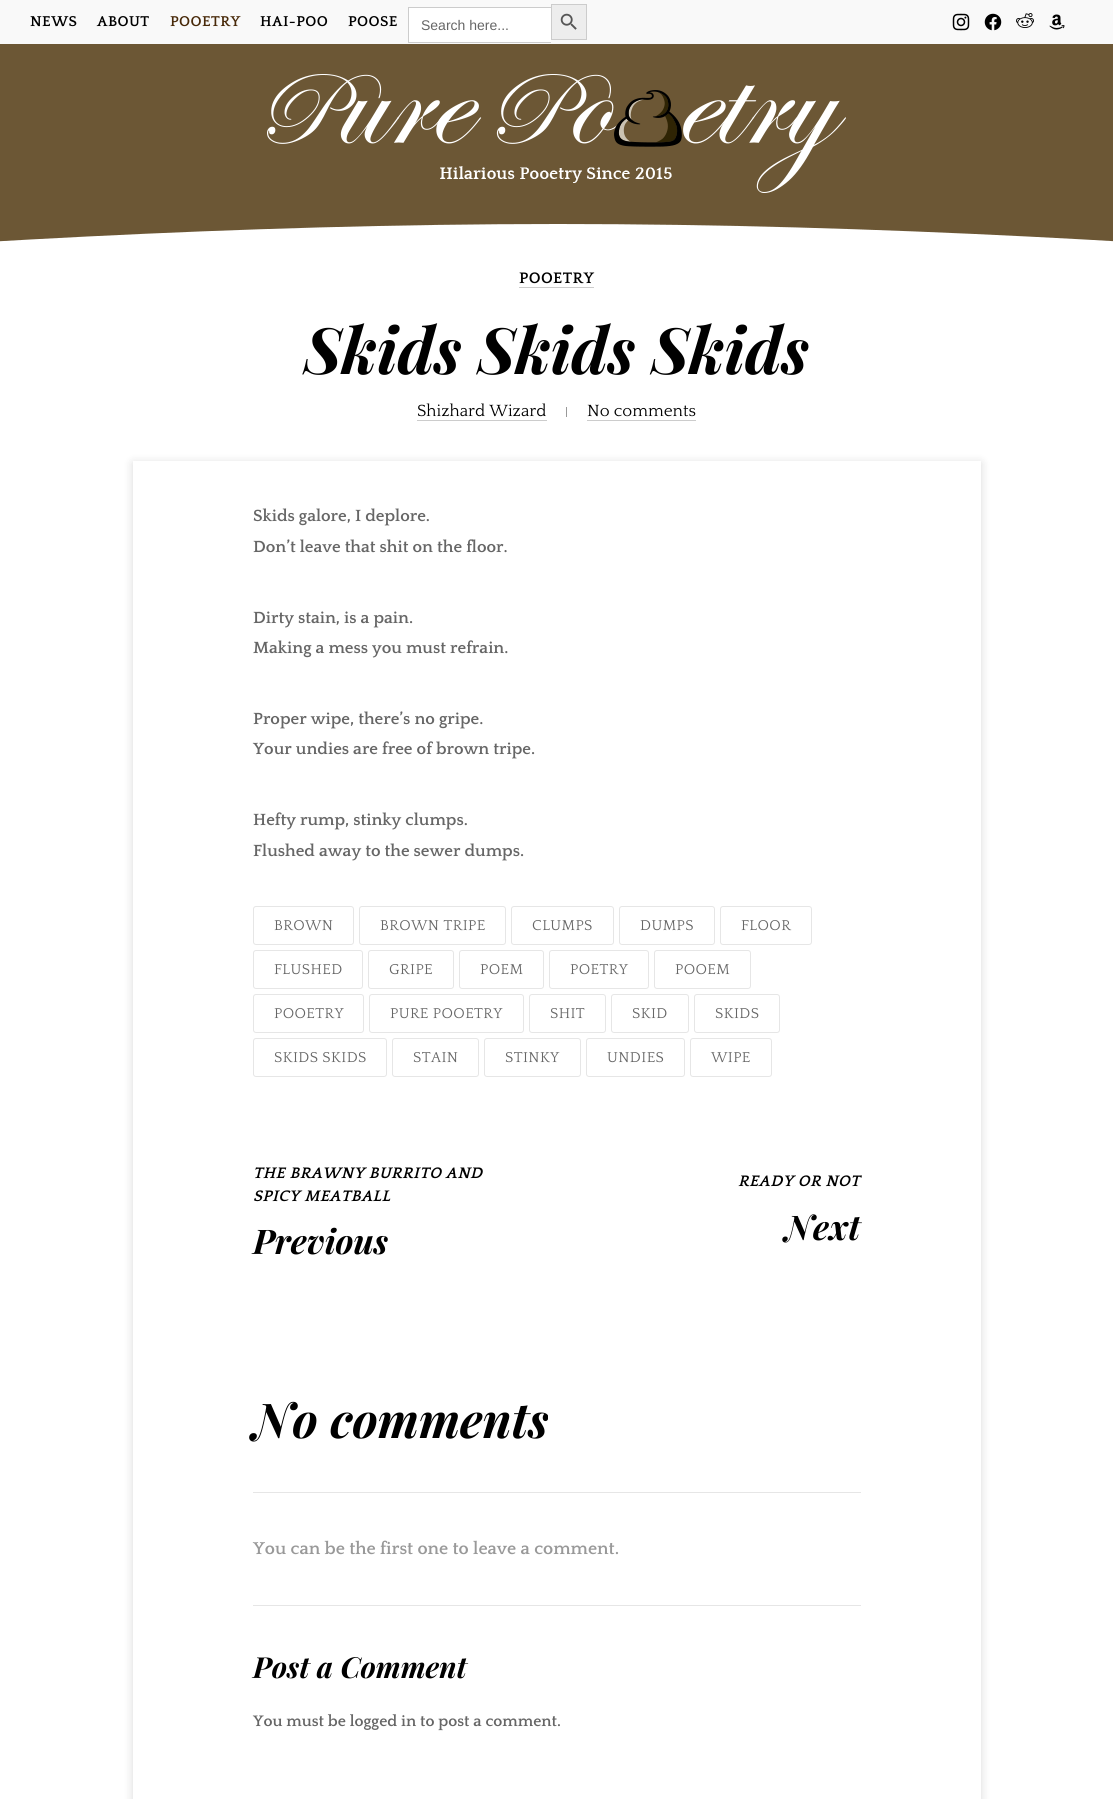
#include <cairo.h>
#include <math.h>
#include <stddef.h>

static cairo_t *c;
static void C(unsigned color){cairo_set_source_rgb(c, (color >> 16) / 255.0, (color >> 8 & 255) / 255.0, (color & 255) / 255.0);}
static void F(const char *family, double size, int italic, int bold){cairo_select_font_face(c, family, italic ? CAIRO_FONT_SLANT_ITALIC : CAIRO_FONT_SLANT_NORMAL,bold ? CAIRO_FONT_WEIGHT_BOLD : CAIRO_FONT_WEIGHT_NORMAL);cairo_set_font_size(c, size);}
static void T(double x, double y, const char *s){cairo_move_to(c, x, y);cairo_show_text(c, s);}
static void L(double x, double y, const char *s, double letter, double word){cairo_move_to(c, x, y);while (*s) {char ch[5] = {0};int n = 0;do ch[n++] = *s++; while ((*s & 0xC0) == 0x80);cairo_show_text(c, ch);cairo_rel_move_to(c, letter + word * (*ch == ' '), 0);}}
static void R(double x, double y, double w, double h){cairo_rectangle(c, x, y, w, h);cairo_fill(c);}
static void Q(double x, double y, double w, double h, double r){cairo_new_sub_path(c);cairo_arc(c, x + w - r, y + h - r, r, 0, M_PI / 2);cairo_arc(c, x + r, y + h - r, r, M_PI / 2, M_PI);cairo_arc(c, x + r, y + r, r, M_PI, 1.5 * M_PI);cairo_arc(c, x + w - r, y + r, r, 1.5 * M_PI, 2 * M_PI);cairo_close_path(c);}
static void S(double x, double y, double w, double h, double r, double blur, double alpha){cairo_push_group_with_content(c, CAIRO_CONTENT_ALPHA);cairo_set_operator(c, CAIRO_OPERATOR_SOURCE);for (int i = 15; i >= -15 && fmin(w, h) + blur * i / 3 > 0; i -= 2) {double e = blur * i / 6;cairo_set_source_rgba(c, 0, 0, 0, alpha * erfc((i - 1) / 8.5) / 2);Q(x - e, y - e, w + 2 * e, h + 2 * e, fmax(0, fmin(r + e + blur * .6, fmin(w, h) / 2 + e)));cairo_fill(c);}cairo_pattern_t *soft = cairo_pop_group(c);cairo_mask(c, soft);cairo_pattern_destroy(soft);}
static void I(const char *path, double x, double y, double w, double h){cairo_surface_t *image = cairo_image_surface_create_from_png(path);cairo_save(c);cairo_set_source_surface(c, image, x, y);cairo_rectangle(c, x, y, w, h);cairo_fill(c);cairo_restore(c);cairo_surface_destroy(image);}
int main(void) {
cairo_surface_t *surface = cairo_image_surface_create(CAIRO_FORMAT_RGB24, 1113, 1799);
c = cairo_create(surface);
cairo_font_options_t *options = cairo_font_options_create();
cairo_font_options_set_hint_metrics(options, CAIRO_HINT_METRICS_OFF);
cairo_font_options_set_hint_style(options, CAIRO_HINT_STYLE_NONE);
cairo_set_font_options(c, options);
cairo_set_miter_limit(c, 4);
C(0xffffff);
cairo_paint(c);
C(0x6c5735);
R(0,44,1113,180);
C(0xf9f9f9);
R(0,0,1113,44);
F("Quattrocento",15,0,1);
C(0x000000);
L(30,26,"NEWS",.4,0);
L(97,26,"ABOUT",.4,0);
C(0x482909);
L(170,26,"POOETRY",.4,0);
C(0x000000);
L(260,26,"HAI-POO",.4,0);
L(348,26,"POOSE",.4,0);
C(0xffffff);
R(409,8,142,34);
C(0xcccccc);
R(408,7,143,1);
R(408,42,143,1);
R(408,7,1,36);
F("Liberation Sans",14,0,0);
C(0x666666);
T(421,30,"Search here...");
C(0xededed);
cairo_rectangle(c,551.5,4.5,35,35);
cairo_fill_preserve(c);
C(0xcccccc);
cairo_set_line_width(c,1);
cairo_stroke(c);
I("1.png",560,13,17,17);
I("2.png",952,13,18,18);
I("3.png",984,13,18,18);
I("4.png",1016,13,18,15);
I("5.png",1049,14,16,16);
I("6.png",267,74,579,119);
C(0x6c5735);
cairo_new_path(c);
cairo_move_to(c,558,224);
cairo_line_to(c,-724,224);
cairo_line_to(c,-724,304);
cairo_curve_to(c,-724,304,-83,224,558,224);
cairo_close_path(c);
cairo_move_to(c,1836,224);
cairo_line_to(c,558,224);
cairo_curve_to(c,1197,224,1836,304,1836,304);
cairo_close_path(c);
cairo_fill(c);
F("Quattrocento",16,0,1);
C(0x000000);
L(519,283,"POOETRY",.4,0);
C(0xcccccc);
R(519,287,75,1);
F("Playfair Display",64,1,1);
C(0x000000);
T(304,374,"Skids Skids Skids");
C(0xcccccc);
R(417,420,130,1);
F("Quattrocento",17,0,0);
C(0x000000);
T(417,416,"Shizhard Wizard");
C(0x999999);
R(566,407,1,10);
C(0xcccccc);
R(587,420,109,1);
C(0x000000);
T(587,416,"No comments");
cairo_save(c);
cairo_set_fill_rule(c,CAIRO_FILL_RULE_EVEN_ODD);
cairo_new_path(c);
cairo_move_to(c,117,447);
cairo_line_to(c,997,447);
cairo_line_to(c,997,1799);
cairo_line_to(c,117,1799);
cairo_close_path(c);
cairo_move_to(c,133,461);
cairo_line_to(c,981,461);
cairo_line_to(c,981,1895);
cairo_line_to(c,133,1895);
cairo_close_path(c);
cairo_clip(c);
C(0x000000);
S(133,463,848,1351,0,5,.15);
cairo_restore(c);
F("Quattrocento",17,0,1);
C(0x666666);
T(253,521,"Skids galore, I deplore.");
T(253,552,"Don’t leave that shit on the floor.");
T(253,623,"Dirty stain, is a pain.");
T(253,653,"Making a mess you must refrain.");
T(253,724,"Proper wipe, there’s no gripe.");
T(253,754,"Your undies are free of brown tripe.");
T(253,825,"Hefty rump, stinky clumps.");
T(253,856,"Flushed away to the sewer dumps.");
Q(253.5,906.5,100,38,2.5);
C(0xe6e6e6);
cairo_stroke(c);
F("Quattrocento",15,0,0);
C(0x666666);
L(274,930,"BROWN",.4,0);
Q(359.5,906.5,146,38,2.5);
C(0xe6e6e6);
cairo_stroke(c);
C(0x666666);
L(380,930,"BROWN TRIPE",.4,0);
Q(511.5,906.5,102,38,2.5);
C(0xe6e6e6);
cairo_stroke(c);
C(0x666666);
L(532,930,"CLUMPS",.4,0);
Q(619.5,906.5,95,38,2.5);
C(0xe6e6e6);
cairo_stroke(c);
C(0x666666);
L(640,930,"DUMPS",.4,0);
Q(720.5,906.5,91,38,2.5);
C(0xe6e6e6);
cairo_stroke(c);
C(0x666666);
L(741,930,"FLOOR",.4,0);
Q(253.5,950.5,109,38,2.5);
C(0xe6e6e6);
cairo_stroke(c);
C(0x666666);
L(274,974,"FLUSHED",.4,0);
Q(368.5,950.5,85,38,2.5);
C(0xe6e6e6);
cairo_stroke(c);
C(0x666666);
L(389,974,"GRIPE",.4,0);
Q(459.5,950.5,84,38,2.5);
C(0xe6e6e6);
cairo_stroke(c);
C(0x666666);
L(480,974,"POEM",.4,0);
Q(549.5,950.5,99,38,2.5);
C(0xe6e6e6);
cairo_stroke(c);
C(0x666666);
L(570,974,"POETRY",.4,0);
Q(654.5,950.5,96,38,2.5);
C(0xe6e6e6);
cairo_stroke(c);
C(0x666666);
L(675,974,"POOEM",.4,0);
Q(253.5,994.5,110,38,2.5);
C(0xe6e6e6);
cairo_stroke(c);
C(0x666666);
L(274,1018,"POOETRY",.4,0);
Q(369.5,994.5,154,38,2.5);
C(0xe6e6e6);
cairo_stroke(c);
C(0x666666);
L(390,1018,"PURE POOETRY",.4,0);
Q(529.5,994.5,76,38,2.5);
C(0xe6e6e6);
cairo_stroke(c);
C(0x666666);
L(550,1018,"SHIT",.4,0);
Q(611.5,994.5,77,38,2.5);
C(0xe6e6e6);
cairo_stroke(c);
C(0x666666);
L(632,1018,"SKID",.4,0);
Q(694.5,994.5,85,38,2.5);
C(0xe6e6e6);
cairo_stroke(c);
C(0x666666);
L(715,1018,"SKIDS",.4,0);
Q(253.5,1038.5,133,38,2.5);
C(0xe6e6e6);
cairo_stroke(c);
C(0x666666);
L(274,1062,"SKIDS SKIDS",.4,0);
Q(392.5,1038.5,86,38,2.5);
C(0xe6e6e6);
cairo_stroke(c);
C(0x666666);
L(413,1062,"STAIN",.4,0);
Q(484.5,1038.5,96,38,2.5);
C(0xe6e6e6);
cairo_stroke(c);
C(0x666666);
L(505,1062,"STINKY",.4,0);
Q(586.5,1038.5,98,38,2.5);
C(0xe6e6e6);
cairo_stroke(c);
C(0x666666);
L(607,1062,"UNDIES",.4,0);
Q(690.5,1038.5,81,38,2.5);
C(0xe6e6e6);
cairo_stroke(c);
C(0x666666);
L(711,1062,"WIPE",.4,0);
F("Quattrocento",16,1,1);
C(0x000000);
L(253,1178,"THE BRAWNY BURRITO AND",.4,0);
L(253,1201,"SPICY MEATBALL",.4,0);
F("Playfair Display",34,1,1);
T(253,1254,"Previous");
F("Quattrocento",16,1,1);
L(738,1186,"READY OR NOT",.4,0);
F("Playfair Display",34,1,1);
T(785,1240,"Next");
C(0xe6e6e6);
R(253,1492,608,1);
F("Playfair Display",48,1,1);
C(0x000000);
T(253,1438,"No comments");
C(0xe6e6e6);
R(253,1605,608,1);
F("Quattrocento",18,0,1);
C(0x999999);
T(253,1554,"You can be the first one to leave a comment.");
F("Playfair Display",29,1,1);
C(0x000000);
T(253,1678,"Post a Comment");
F("Quattrocento",16,0,1);
C(0x666666);
T(253,1726,"You must be logged in to post a comment.");
cairo_surface_write_to_png(surface, "o.png");
cairo_font_options_destroy(options);
cairo_destroy(c);
cairo_surface_destroy(surface);
return 0;
}
